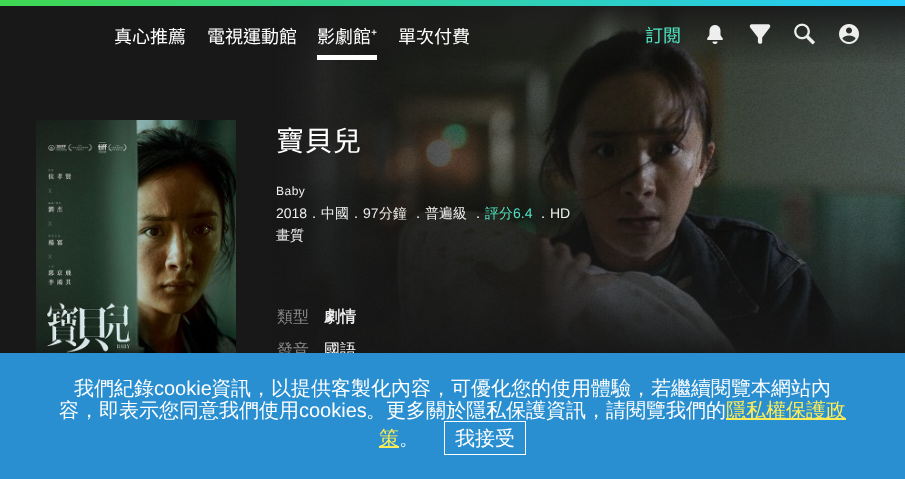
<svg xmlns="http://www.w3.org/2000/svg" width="905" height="479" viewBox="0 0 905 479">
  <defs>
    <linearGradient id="g1" gradientUnits="userSpaceOnUse" x1="453" y1="0" x2="453" y2="66"><stop offset="0" stop-color="#181818"/><stop offset="1" stop-color="#181818" stop-opacity="0"/></linearGradient>
    <linearGradient id="g2" gradientUnits="userSpaceOnUse" x1="223" y1="-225" x2="682" y2="231"><stop offset="0" stop-color="#3fd750"/><stop offset="1" stop-color="#24cbff"/></linearGradient>
  </defs>
  <rect width="100%" height="100%" fill="#181818"/>
  <image x="276" y="6" width="629" height="347" href="img6.png"/>
  <image x="272" y="6" width="633" height="347" href="img5.png"/>
  <rect x="278" y="6" width="627" height="57" fill="url(#g1)"/>
  <rect x="0" y="0" width="905" height="6" fill="url(#g2)"/>
  <text x="114" y="43" font-family="Noto Sans TC" font-size="18" font-weight="100" fill="#ffffff">真心推薦</text>
  <text x="207" y="43" font-family="Noto Sans TC" font-size="18" font-weight="100" fill="#ffffff">電視運動館</text>
  <rect x="317" y="55" width="60" height="5" fill="#ffffff"/>
  <text x="317" y="43" font-family="Noto Sans TC" font-size="18" font-weight="100" fill="#ffffff">影劇館</text>
  <text x="371" y="43" font-family="Noto Sans" font-size="18" fill="#ffffff">⁺</text>
  <text x="398" y="43" font-family="Noto Sans TC" font-size="18" font-weight="100" fill="#ffffff">單次付費</text>
  <text x="645" y="42" font-family="Noto Sans TC" font-size="18" font-weight="100" fill="#50e3c2">訂閱</text>
  <image x="707" y="25" width="16" height="19" href="img1.png"/>
  <image x="749" y="24" width="22" height="20" href="img2.png"/>
  <image x="794" y="23" width="21" height="22" href="img3.png"/>
  <image x="839" y="24" width="20" height="20" href="img4.png"/>
  <image x="36" y="120" width="200" height="233" href="img7.png"/>
  <text x="276" y="151" font-family="Noto Sans TC" font-size="28" font-weight="100" letter-spacing="0.5" fill="#ffffff">寶貝兒</text>
  <text x="276" y="195" font-family="Liberation Sans" font-size="12" letter-spacing="0.5" fill="#eeeeee">Baby</text>
  <text x="276" y="218" font-family="Liberation Sans" font-size="14" fill="#eeeeee">2018</text>
  <text x="307" y="218" font-family="WenQuanYi Zen Hei" font-size="14" font-weight="500" fill="#eeeeee">．中國．</text>
  <text x="363" y="218" font-family="Liberation Sans" font-size="14" fill="#eeeeee">97</text>
  <text x="379" y="218" font-family="WenQuanYi Zen Hei" font-size="14" font-weight="500" fill="#eeeeee">分鐘</text>
  <text x="411" y="218" font-family="WenQuanYi Zen Hei" font-size="14" font-weight="500" fill="#eeeeee">．普遍級</text>
  <text x="471" y="218" font-family="WenQuanYi Zen Hei" font-size="14" font-weight="500" fill="#eeeeee">．</text>
  <text x="485" y="218" font-family="WenQuanYi Zen Hei" font-size="14" font-weight="500" fill="#50e3c2">評分</text>
  <text x="513" y="218" font-family="Liberation Sans" font-size="14" fill="#50e3c2">6.4</text>
  <text x="536" y="218" font-family="WenQuanYi Zen Hei" font-size="14" font-weight="500" fill="#eeeeee">．</text>
  <text x="550" y="218" font-family="Liberation Sans" font-size="14" fill="#eeeeee">HD</text>
  <text x="276" y="240" font-family="WenQuanYi Zen Hei" font-size="14" font-weight="500" fill="#eeeeee">畫質</text>
  <text x="277" y="322" font-family="WenQuanYi Zen Hei" font-size="16" font-weight="500" fill="#888888">類型</text>
  <text x="324" y="322" font-family="WenQuanYi Zen Hei" font-size="16" font-weight="bold" fill="#eeeeee">劇情</text>
  <text x="277" y="355" font-family="WenQuanYi Zen Hei" font-size="16" font-weight="500" fill="#888888">發音</text>
  <text x="324" y="355" font-family="WenQuanYi Zen Hei" font-size="16" font-weight="500" fill="#ffffff">國語</text>
  <rect x="0" y="353" width="905" height="126" fill="#298fd1"/>
  <text x="74" y="395" font-family="WenQuanYi Zen Hei" font-size="20" font-weight="500" fill="#ffffff">我們紀錄</text>
  <text x="154" y="395" font-family="Liberation Sans" font-size="20" fill="#ffffff">cookie</text>
  <text x="211" y="395" font-family="WenQuanYi Zen Hei" font-size="20" font-weight="500" fill="#ffffff">資訊，以提供客製化內容，可優化您的使用體驗，若繼續閱覽本網站內</text>
  <text x="59" y="417" font-family="WenQuanYi Zen Hei" font-size="20" font-weight="500" fill="#ffffff">容，即表示您同意我們使用</text>
  <text x="299" y="417" font-family="Liberation Sans" font-size="20" fill="#ffffff">cookies</text>
  <text x="366" y="417" font-family="WenQuanYi Zen Hei" font-size="20" font-weight="500" fill="#ffffff">。更多關於隱私保護資訊，請閱覽我們的</text>
  <rect x="726" y="418" width="120" height="2" fill="#fdec57"/>
  <text x="726" y="417" font-family="WenQuanYi Zen Hei" font-size="20" font-weight="500" fill="#fdec57">隱私權保護政</text>
  <rect x="379" y="446" width="20" height="2" fill="#fdec57"/>
  <text x="379" y="445" font-family="WenQuanYi Zen Hei" font-size="20" font-weight="500" fill="#fdec57">策</text>
  <text x="399" y="445" font-family="WenQuanYi Zen Hei" font-size="20" font-weight="500" fill="#ffffff">。</text>
  <rect x="444.5" y="421.5" width="81" height="33" fill="none" stroke="#ffffff"/>
  <text x="455" y="445" font-family="WenQuanYi Zen Hei" font-size="20" font-weight="500" fill="#ffffff">我接受</text>
</svg>
